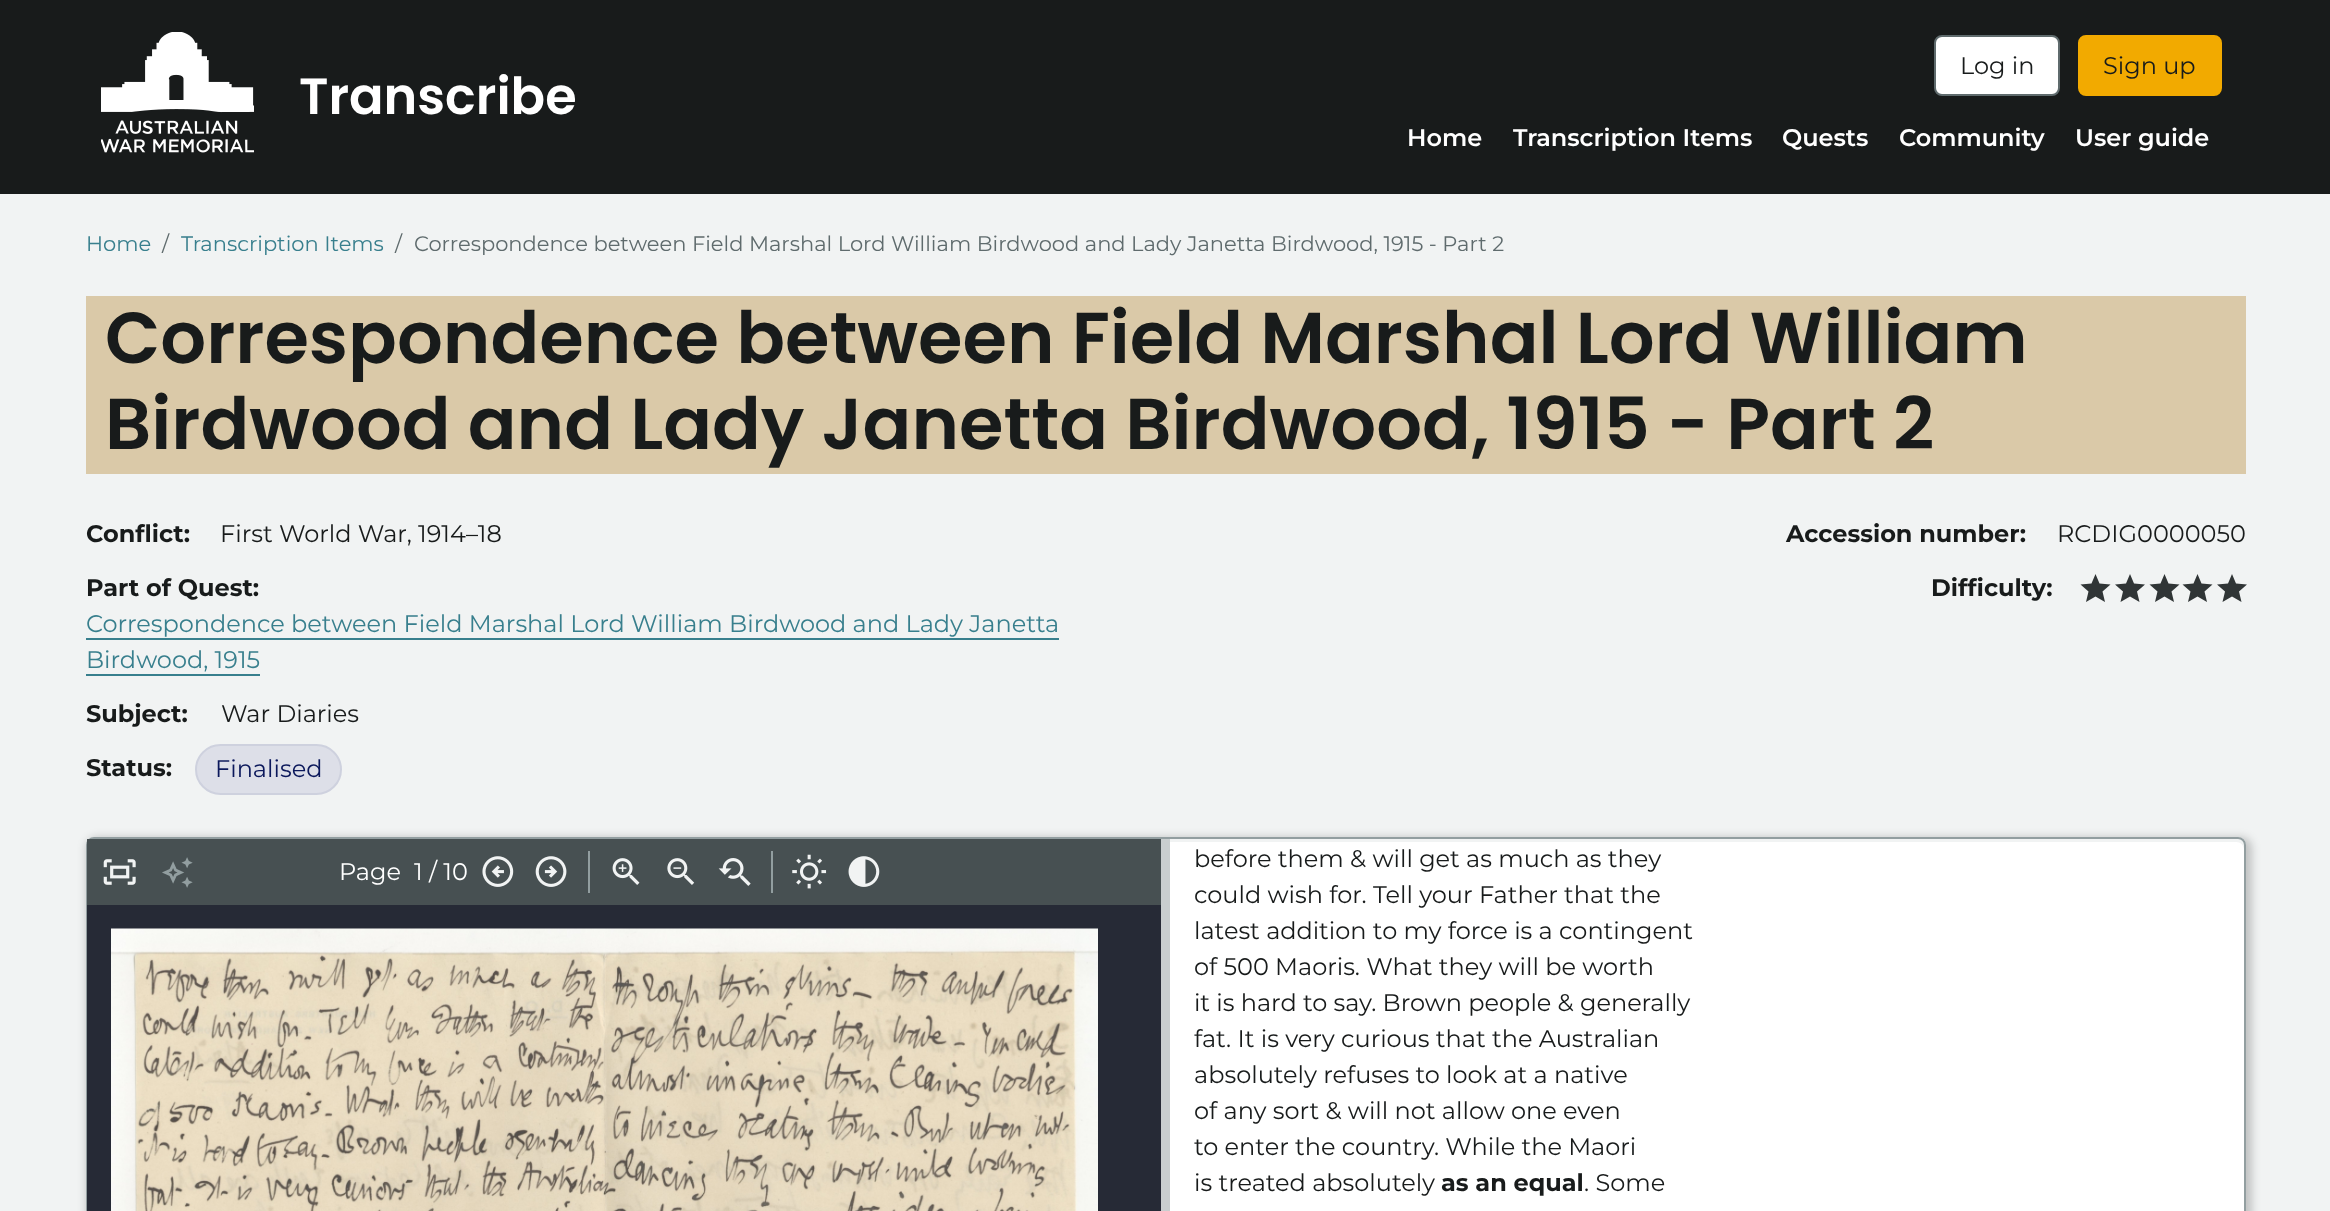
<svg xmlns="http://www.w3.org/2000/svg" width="2330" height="1211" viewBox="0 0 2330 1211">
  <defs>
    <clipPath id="clip1"><path d="M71 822H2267V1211H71ZM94 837H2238C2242.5 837 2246 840.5 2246 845V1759C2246 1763.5 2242.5 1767 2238 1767H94C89.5 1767 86 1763.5 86 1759V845C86 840.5 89.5 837 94 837Z" clip-rule="evenodd"/></clipPath>
    <filter id="blur1" x="-50%" y="-200%" width="200%" height="500%"><feGaussianBlur stdDeviation="4.5"/></filter>
  </defs>
  <rect width="100%" height="100%" fill="#f1f3f3"/>
  <rect x="0" y="0" width="2330" height="194" fill="#181b1b"/>
  <image x="101" y="32" width="153" height="121" href="img1.png"/>
  <text x="299" y="114" font-family="Poppins" font-size="51" font-weight="600" fill="#ffffff">Transcribe</text>
  <rect x="1935" y="36" width="124" height="59" rx="7" fill="#ffffff" stroke="#5f6b6d" stroke-width="2"/>
  <text x="1960" y="74" font-family="Montserrat" font-size="24" fill="#181b1b">Log in</text>
  <rect x="2079" y="36" width="142" height="59" rx="7" fill="#f2aa00" stroke="#f2aa00" stroke-width="2"/>
  <text x="2103" y="74" font-family="Montserrat" font-size="24" fill="#181b1b">Sign up</text>
  <text x="1407" y="146" font-family="Montserrat" font-size="24" font-weight="600" fill="#ffffff">Home</text>
  <text x="1513" y="146" font-family="Montserrat" font-size="24" font-weight="600" fill="#ffffff">Transcription Items</text>
  <text x="1782" y="146" font-family="Montserrat" font-size="24" font-weight="600" fill="#ffffff">Quests</text>
  <text x="1899" y="146" font-family="Montserrat" font-size="24" font-weight="600" fill="#ffffff">Community</text>
  <text x="2075" y="146" font-family="Montserrat" font-size="24" font-weight="600" fill="#ffffff">User guide</text>
  <text x="86" y="251" font-family="Montserrat" font-size="21" fill="#387f8d">Home</text>
  <text x="162" y="251" font-family="Montserrat" font-size="21" fill="#5f6b6d">/</text>
  <text x="181" y="251" font-family="Montserrat" font-size="21" fill="#387f8d">Transcription Items</text>
  <text x="395" y="251" font-family="Montserrat" font-size="21" fill="#5f6b6d">/</text>
  <text x="414" y="251" font-family="Montserrat" font-size="21" fill="#5f6b6d">Correspondence between Field Marshal Lord William Birdwood and Lady Janetta Birdwood, 1915 - Part 2</text>
  <rect x="86" y="296" width="2160" height="178" fill="#dac9a8"/>
  <text x="105" y="363" font-family="Poppins" font-size="72" font-weight="600" fill="#181b1b">Correspondence between Field Marshal Lord William</text>
  <text x="105" y="449" font-family="Poppins" font-size="72" font-weight="600" fill="#181b1b">Birdwood and Lady Janetta Birdwood, 1915 - Part 2</text>
  <text x="86" y="542" font-family="Montserrat" font-size="24" font-weight="bold" fill="#181b1b">Conflict:</text>
  <text x="220" y="542" font-family="Montserrat" font-size="24" fill="#181b1b">First World War, 1914–18</text>
  <text x="86" y="596" font-family="Montserrat" font-size="24" font-weight="bold" fill="#181b1b">Part of Quest:</text>
  <text x="86" y="632" font-family="Montserrat" font-size="24" fill="#387f8d">Correspondence between Field Marshal Lord William Birdwood and Lady Janetta</text>
  <rect x="86" y="638" width="973" height="2" fill="#387f8d"/>
  <text x="86" y="668" font-family="Montserrat" font-size="24" fill="#387f8d">Birdwood, 1915</text>
  <rect x="86" y="674" width="174" height="2" fill="#387f8d"/>
  <text x="86" y="722" font-family="Montserrat" font-size="24" font-weight="bold" fill="#181b1b">Subject:</text>
  <text x="221" y="722" font-family="Montserrat" font-size="24" fill="#181b1b">War Diaries</text>
  <text x="86" y="776" font-family="Montserrat" font-size="24" font-weight="bold" fill="#181b1b">Status:</text>
  <rect x="196" y="745" width="145" height="49" rx="24.5" fill="#dddfe8" stroke="#ced1de" stroke-width="2"/>
  <text x="215" y="777" font-family="Montserrat" font-size="24" fill="#0b185b">Finalised</text>
  <text x="1786" y="542" font-family="Montserrat" font-size="24" font-weight="bold" fill="#181b1b">Accession number:</text>
  <text x="2057" y="542" font-family="Montserrat" font-size="24" fill="#181b1b">RCDIG0000050</text>
  <text x="1931" y="596" font-family="Montserrat" font-size="24" font-weight="bold" fill="#181b1b">Difficulty:</text>
  <path d="M2095.5 596.5L2105 602L2102.5 591.5L2110.5 584.5L2099.5 583.5L2095.5 574L2091.5 583.5L2080.5 584.5L2088.5 591.5L2086 602Z" fill="#303536"/>
  <path d="M2130 596.5L2139.5 602L2137 591.5L2145 584.5L2134 583.5L2130 574L2126 583.5L2115 584.5L2123 591.5L2120.5 602Z" fill="#303536"/>
  <path d="M2164.5 596.5L2174 602L2171.5 591.5L2179.5 584.5L2168.5 583.5L2164.5 574L2160.5 583.5L2149.5 584.5L2157.5 591.5L2155 602Z" fill="#303536"/>
  <path d="M2197.5 596.5L2207 602L2204.5 591.5L2212.5 584.5L2201.5 583.5L2197.5 574L2193.5 583.5L2182.5 584.5L2190.5 591.5L2188 602Z" fill="#303536"/>
  <path d="M2232 596.5L2241.5 602L2239 591.5L2247 584.5L2236 583.5L2232 574L2228 583.5L2217 584.5L2225 591.5L2222.5 602Z" fill="#303536"/>
  <g clip-path="url(#clip1)">
    <rect x="86" y="837" width="2166" height="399" rx="11" fill="#000000" fill-opacity="0.2" filter="url(#blur1)"/>
  </g>
  <rect x="87" y="838" width="2158" height="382" rx="7" fill="none" stroke="#929ea0" stroke-width="2"/>
  <rect x="87" y="905" width="1074" height="306" fill="#262a36"/>
  <rect x="87" y="839" width="1074" height="66" fill="#475052"/>
  <rect x="588" y="851" width="2" height="42" fill="#929ea0"/>
  <image x="612" y="858" width="28" height="27" href="img2.png"/>
  <image x="667" y="858" width="28" height="27" href="img3.png"/>
  <image x="718" y="858" width="33" height="28" href="img4.png"/>
  <rect x="771" y="851" width="2" height="42" fill="#929ea0"/>
  <image x="792" y="854" width="35" height="35" href="img5.png"/>
  <image x="848" y="856" width="32" height="31" href="img6.png"/>
  <image x="111" y="928" width="987" height="283" href="img7.png"/>
  <image x="103" y="859" width="33" height="26" href="img8.png"/>
  <image x="162" y="857" width="31" height="31" href="img9.png"/>
  <text x="339" y="880" font-family="Montserrat" font-size="24" fill="#ffffff">Page</text>
  <text x="414" y="880" font-family="Montserrat" font-size="24" fill="#ffffff">1 / 10</text>
  <image x="482" y="856" width="32" height="31" href="img10.png"/>
  <image x="535" y="856" width="32" height="31" href="img11.png"/>
  <rect x="1161" y="839" width="9" height="372" fill="#c9cecf"/>
  <path d="M1170 842H2236C2240.5 842 2244 845.5 2244 850V1211C2244 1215.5 2240.5 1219 2236 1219H1170Z" fill="#ffffff"/>
  <text x="1194" y="867" font-family="Montserrat" font-size="24" fill="#181b1b">before them &amp; will get as much as they</text>
  <text x="1194" y="903" font-family="Montserrat" font-size="24" fill="#181b1b">could wish for. Tell your Father that the</text>
  <text x="1194" y="939" font-family="Montserrat" font-size="24" fill="#181b1b">latest addition to my force is a contingent</text>
  <text x="1194" y="975" font-family="Montserrat" font-size="24" fill="#181b1b">of 500 Maoris. What they will be worth</text>
  <text x="1194" y="1011" font-family="Montserrat" font-size="24" fill="#181b1b">it is hard to say. Brown people &amp; generally</text>
  <text x="1194" y="1047" font-family="Montserrat" font-size="24" fill="#181b1b">fat. It is very curious that the Australian</text>
  <text x="1194" y="1083" font-family="Montserrat" font-size="24" fill="#181b1b">absolutely refuses to look at a native</text>
  <text x="1194" y="1119" font-family="Montserrat" font-size="24" fill="#181b1b">of any sort &amp; will not allow one even</text>
  <text x="1194" y="1155" font-family="Montserrat" font-size="24" fill="#181b1b">to enter the country. While the Maori</text>
  <text x="1194" y="1191" font-family="Montserrat" font-size="24" fill="#181b1b">is treated absolutely</text>
  <text x="1441" y="1191" font-family="Montserrat" font-size="24" font-weight="bold" fill="#181b1b">as an equal</text>
  <text x="1584" y="1191" font-family="Montserrat" font-size="24" fill="#181b1b">. Some</text>
</svg>
